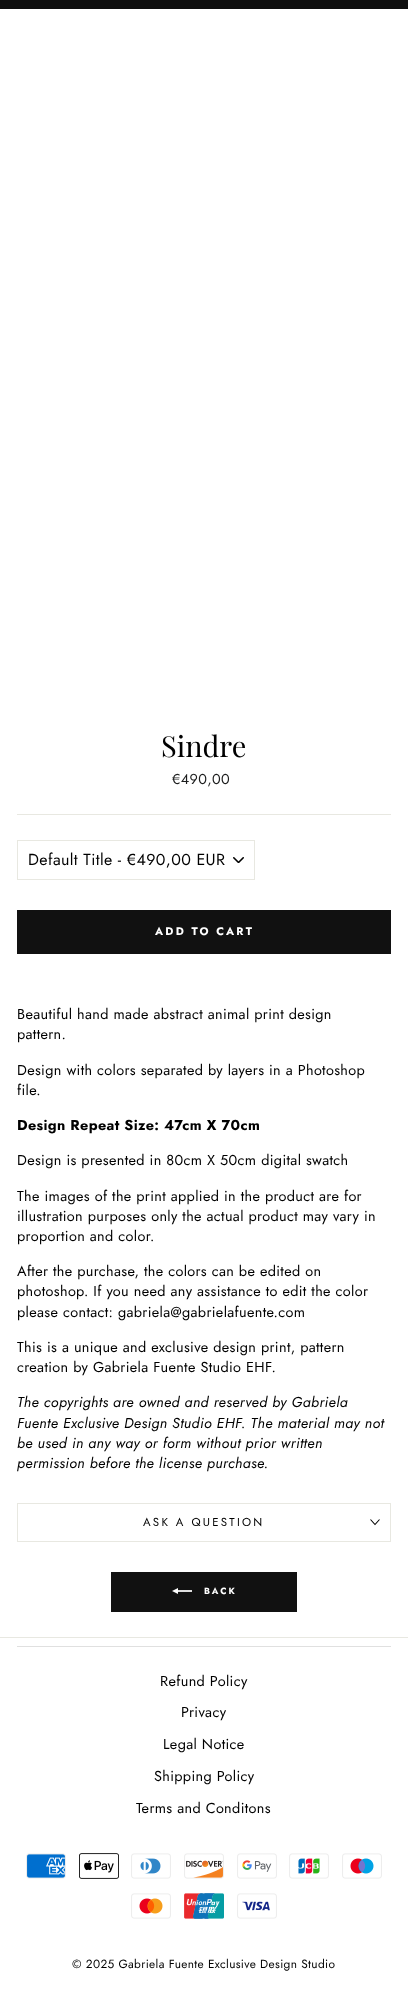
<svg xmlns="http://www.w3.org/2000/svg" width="408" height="1995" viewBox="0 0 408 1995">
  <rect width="100%" height="100%" fill="#ffffff"/>
  <rect x="0" y="0" width="408" height="9" fill="#0f0f0f"/>
  <text x="161" y="757" font-family="Playfair Display" font-size="29" fill="#000000">Sindre</text>
  <text x="172" y="784" font-family="Jost" font-size="14.45" letter-spacing="0.35" fill="#1c1d1d">€490,00</text>
  <rect x="17" y="814" width="374" height="1" fill="#e8e8e1"/>
  <image x="233" y="857" width="11" height="6" href="img1.png"/>
  <rect x="17.5" y="840.5" width="237" height="39" fill="none" stroke="#e8e8e1"/>
  <text x="28" y="865" font-family="Jost" font-size="16" letter-spacing="0.4" fill="#000000">Default Title - €490,00 EUR</text>
  <rect x="17" y="910" width="374" height="44" fill="#111111"/>
  <text x="155" y="935" font-family="Jost" font-size="11" font-weight="bold" letter-spacing="2.25" fill="#ffffff">ADD TO CART</text>
  <text x="17" y="1019" font-family="Jost" font-size="14.45" letter-spacing="0.35" fill="#000000">Beautiful hand made abstract animal print design</text>
  <text x="17" y="1039" font-family="Jost" font-size="14.45" letter-spacing="0.35" fill="#000000">pattern.</text>
  <text x="17" y="1075" font-family="Jost" font-size="14.45" letter-spacing="0.35" fill="#000000">Design with colors separated by layers in a Photoshop</text>
  <text x="17" y="1095" font-family="Jost" font-size="14.45" letter-spacing="0.35" fill="#000000">file.</text>
  <text x="17" y="1130" font-family="Jost" font-size="14.45" font-weight="bold" letter-spacing="0.35" fill="#000000">Design Repeat Size: 47cm X 70cm</text>
  <text x="17" y="1165" font-family="Jost" font-size="14.45" letter-spacing="0.35" fill="#000000">Design is presented in 80cm X 50cm digital swatch</text>
  <text x="17" y="1201" font-family="Jost" font-size="14.45" letter-spacing="0.35" fill="#000000">The images of the print applied in the product are for</text>
  <text x="17" y="1221" font-family="Jost" font-size="14.45" letter-spacing="0.35" fill="#000000">illustration purposes only the actual product may vary in</text>
  <text x="17" y="1241" font-family="Jost" font-size="14.45" letter-spacing="0.35" fill="#000000">proportion and color.</text>
  <text x="17" y="1276" font-family="Jost" font-size="14.45" letter-spacing="0.35" fill="#000000">After the purchase, the colors can be edited on</text>
  <text x="17" y="1296" font-family="Jost" font-size="14.45" letter-spacing="0.35" fill="#000000">photoshop. If you need any assistance to edit the color</text>
  <text x="17" y="1317" font-family="Jost" font-size="14.45" letter-spacing="0.35" fill="#000000">please contact: gabriela@gabrielafuente.com</text>
  <text x="17" y="1352" font-family="Jost" font-size="14.45" letter-spacing="0.35" fill="#000000">This is a unique and exclusive design print, pattern</text>
  <text x="17" y="1372" font-family="Jost" font-size="14.45" letter-spacing="0.35" fill="#000000">creation by Gabriela Fuente Studio EHF.</text>
  <text x="17" y="1407" font-family="Jost" font-size="14.45" font-style="italic" letter-spacing="0.35" fill="#000000">The copyrights are owned and reserved by Gabriela</text>
  <text x="17" y="1428" font-family="Jost" font-size="14.45" font-style="italic" letter-spacing="0.35" fill="#000000">Fuente Exclusive Design Studio EHF. The material may not</text>
  <text x="17" y="1448" font-family="Jost" font-size="14.45" font-style="italic" letter-spacing="0.35" fill="#000000">be used in any way or form without prior written</text>
  <text x="17" y="1468" font-family="Jost" font-size="14.45" font-style="italic" letter-spacing="0.35" fill="#000000">permission before the license purchase.</text>
  <rect x="17" y="1541" width="374" height="1" fill="#e8e8e1"/>
  <rect x="17" y="1503" width="374" height="1" fill="#e8e8e1"/>
  <rect x="390" y="1503" width="1" height="38" fill="#e8e8e1"/>
  <rect x="17" y="1503" width="1" height="38" fill="#e8e8e1"/>
  <text x="143" y="1526" font-family="Jost" font-size="11.5" letter-spacing="2.25" fill="#000000">ASK A QUESTION</text>
  <path d="M370.5 1519.5L375 1524.5L379.5 1519.5" fill="none" stroke="#000000" stroke-width="1.1"/>
  <rect x="111" y="1572" width="186" height="40" fill="#111111"/>
  <image x="172" y="1588" width="20" height="6" href="img2.png"/>
  <text x="204" y="1594" font-family="Jost" font-size="9" font-weight="bold" letter-spacing="2" fill="#ffffff">BACK</text>
  <rect x="0" y="1637" width="408" height="1" fill="#e8e8e1"/>
  <rect x="17" y="1646" width="374" height="1" fill="#e0e0e0"/>
  <text x="160" y="1686" font-family="Jost" font-size="14.45" letter-spacing="0.35" fill="#000000">Refund Policy</text>
  <text x="181" y="1717" font-family="Jost" font-size="14.45" letter-spacing="0.35" fill="#000000">Privacy</text>
  <text x="163" y="1749" font-family="Jost" font-size="14.45" letter-spacing="0.35" fill="#000000">Legal Notice</text>
  <text x="154" y="1781" font-family="Jost" font-size="14.45" letter-spacing="0.35" fill="#000000">Shipping Policy</text>
  <text x="136" y="1813" font-family="Jost" font-size="14.45" letter-spacing="0.35" fill="#000000">Terms and Conditons</text>
  <image x="26" y="1853" width="40" height="26" href="img3.png"/>
  <image x="79" y="1853" width="40" height="26" href="img4.png"/>
  <image x="131" y="1853" width="40" height="26" href="img5.png"/>
  <image x="184" y="1853" width="40" height="26" href="img6.png"/>
  <image x="237" y="1853" width="40" height="26" href="img7.png"/>
  <image x="289" y="1853" width="40" height="26" href="img8.png"/>
  <image x="342" y="1853" width="40" height="26" href="img9.png"/>
  <image x="131" y="1893" width="40" height="26" href="img10.png"/>
  <image x="184" y="1893" width="40" height="26" href="img11.png"/>
  <image x="237" y="1893" width="40" height="26" href="img12.png"/>
  <text x="72" y="1968" font-family="Jost" font-size="11.9" letter-spacing="0.35" fill="#000000">© 2025 Gabriela Fuente Exclusive Design Studio</text>
</svg>
